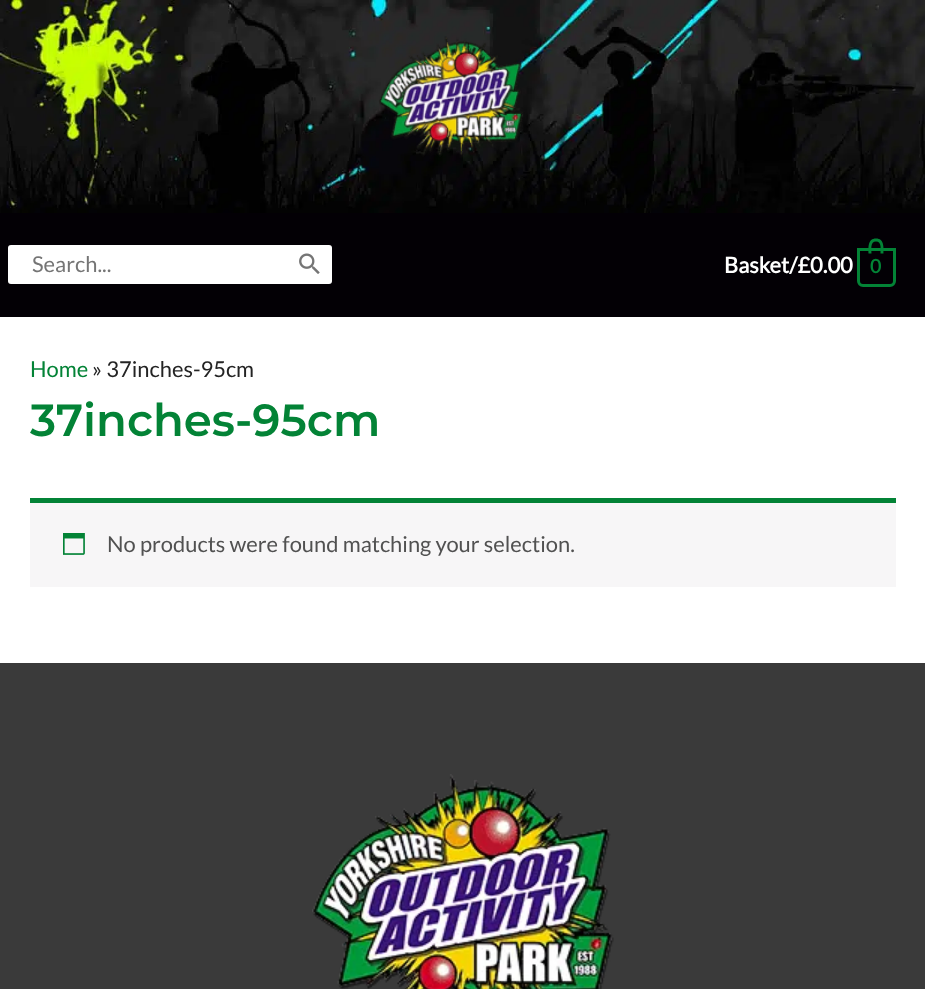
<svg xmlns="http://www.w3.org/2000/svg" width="925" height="989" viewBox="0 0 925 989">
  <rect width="100%" height="100%" fill="#ffffff"/>
  <image x="0" y="0" width="925" height="213" href="img1.png"/>
  <image x="379" y="36" width="144" height="121" href="img2.png"/>
  <rect x="0" y="213" width="925" height="104" fill="#030005"/>
  <rect x="8" y="245" width="324" height="39" rx="3" fill="#ffffff"/>
  <text x="32" y="272" font-family="Lato" font-size="21.9" fill="#757575">Search...</text>
  <image x="299" y="253" width="21" height="21" href="img3.png"/>
  <text x="724" y="273" font-family="Lato" font-size="21.9" font-weight="bold" fill="#ffffff">Basket/£0.00</text>
  <path d="M858.5 249.5H894.5V281C894.5 283.5 892.5 285.5 890 285.5H863C860.5 285.5 858.5 283.5 858.5 281Z" fill="none" stroke="#038336" stroke-width="3"/>
  <path d="M876 238.5C884.5 238.5 883.5 247.5 883.5 253.5H868.5C868.5 247.5 867.5 238.5 876 238.5ZM876 241.5C882 241.5 880.5 249.5 880.5 253.5H871.5C871.5 249.5 870 241.5 876 241.5Z" fill="#038336" fill-rule="evenodd"/>
  <text x="870" y="273" font-family="Lato" font-size="19" font-weight="bold" fill="#038336">0</text>
  <text x="30" y="377" font-family="Lato" font-size="21.9" fill="#038336">Home</text>
  <text x="92" y="377" font-family="Lato" font-size="21.9" fill="#242424">» 37inches-95cm</text>
  <text x="30" y="436" font-family="Montserrat" font-size="45" font-weight="600" fill="#038336">37inches-95cm</text>
  <rect x="30" y="503" width="866" height="84" fill="#f7f6f7"/>
  <rect x="30" y="498" width="866" height="5" fill="#038336"/>
  <image x="63" y="533" width="22" height="22" href="img4.png"/>
  <text x="107" y="552" font-family="Lato" font-size="21.9" fill="#515151">No products were found matching your selection.</text>
  <rect x="0" y="663" width="925" height="326" fill="#3a3a3a"/>
  <image x="312" y="774" width="302" height="215" href="img5.png"/>
</svg>
